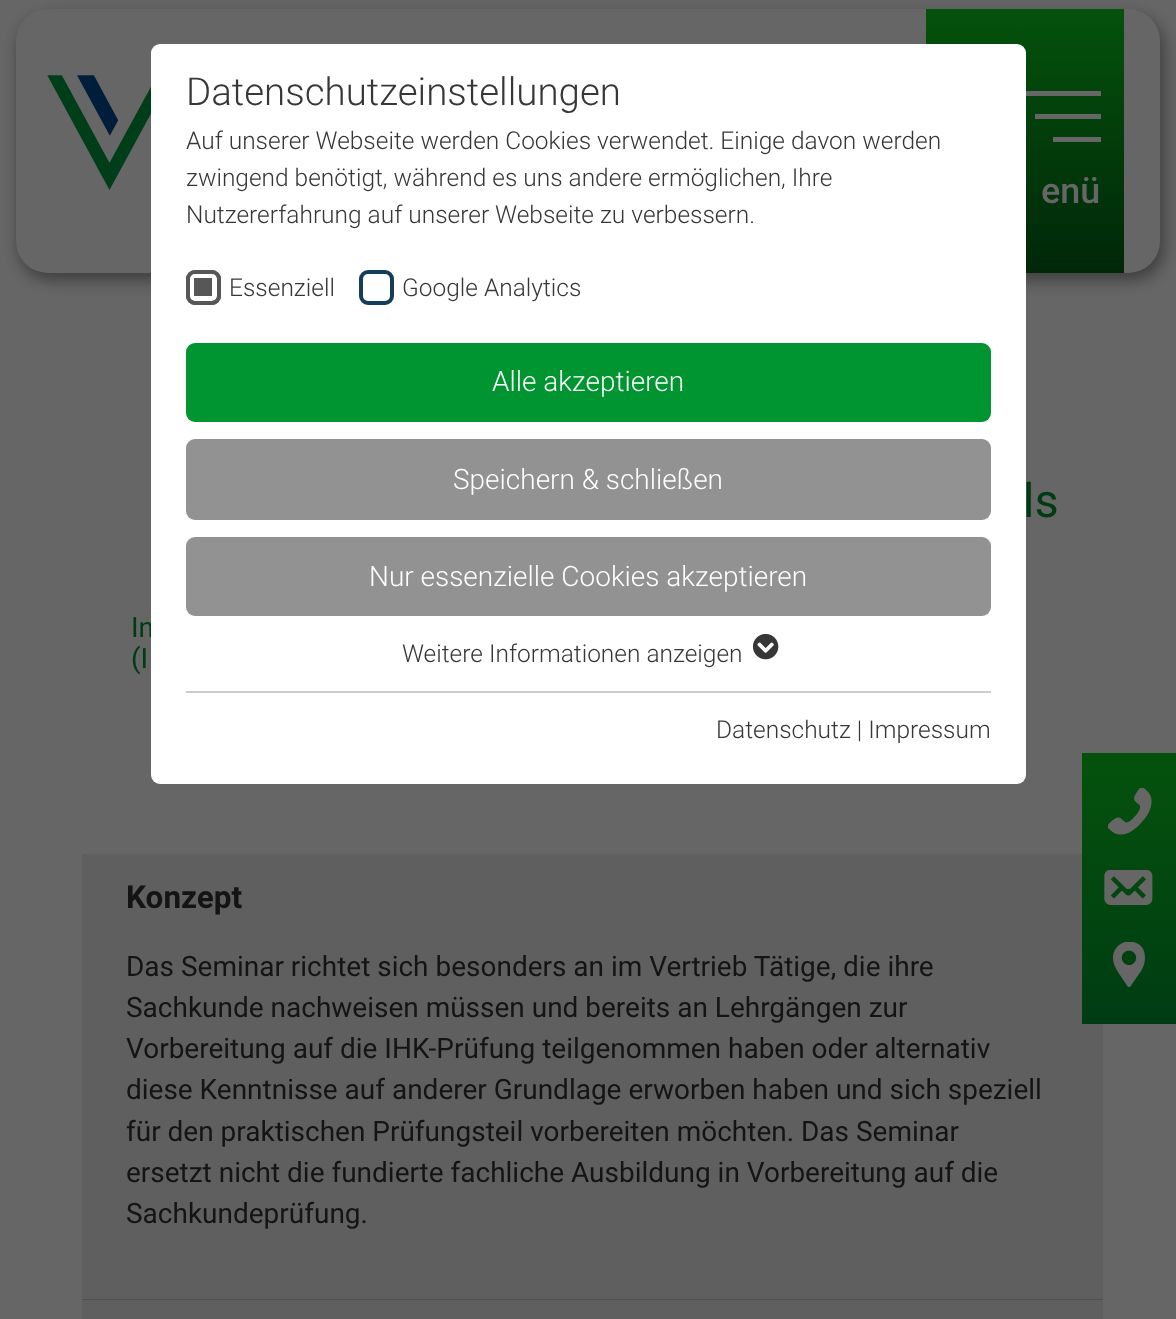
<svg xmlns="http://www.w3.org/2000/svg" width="1176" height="1319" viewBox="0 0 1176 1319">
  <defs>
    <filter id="blur1" x="-50%" y="-200%" width="200%" height="500%"><feGaussianBlur stdDeviation="8"/></filter>
    <linearGradient id="g1" gradientUnits="userSpaceOnUse" x1="1025" y1="273" x2="1025" y2="9"><stop offset="0" stop-color="#002709"/><stop offset="1" stop-color="#04520c"/></linearGradient>
    <linearGradient id="g2" gradientUnits="userSpaceOnUse" x1="1129" y1="1024" x2="1129" y2="753"><stop offset="0" stop-color="#003c13"/><stop offset="1" stop-color="#04520c"/></linearGradient>
  </defs>
  <rect width="100%" height="100%" fill="#666666"/>
  <rect x="19" y="16" width="1145" height="264" rx="32" fill="#000000" fill-opacity="0.4" filter="url(#blur1)"/>
  <rect x="16" y="9" width="1144" height="264" rx="32" fill="#666666"/>
  <rect x="926" y="9" width="198" height="264" fill="url(#g1)"/>
  <text x="131" y="637" font-family="Roboto" font-size="28" fill="#003c13">In</text>
  <rect x="151" y="44" width="875" height="740" rx="9" fill="#ffffff"/>
  <text x="186" y="105" font-family="Roboto" font-size="38.5" font-weight="300" fill="#373737">Datenschutzeinstellungen</text>
  <text x="186" y="149" font-family="Roboto" font-size="24.5" font-weight="300" fill="#373737">Auf unserer Webseite werden Cookies verwendet. Einige davon werden</text>
  <text x="186" y="186" font-family="Roboto" font-size="24.5" font-weight="300" fill="#373737">zwingend benötigt, während es uns andere ermöglichen, Ihre</text>
  <text x="186" y="223" font-family="Roboto" font-size="24.5" font-weight="300" fill="#373737">Nutzererfahrung auf unserer Webseite zu verbessern.</text>
  <rect x="186" y="270" width="35" height="35" rx="9" fill="#575757"/>
  <rect x="191.5" y="275.5" width="23" height="23" rx="2.5" fill="none" stroke="#ffffff" stroke-width="5"/>
  <rect x="188" y="272" width="31" height="31" rx="7" fill="none" stroke="#575757" stroke-width="4"/>
  <text x="229" y="296" font-family="Roboto" font-size="24.5" font-weight="300" fill="#373737">Essenziell</text>
  <rect x="361" y="272" width="31" height="31" rx="7" fill="none" stroke="#143d59" stroke-width="4"/>
  <text x="402" y="296" font-family="Roboto" font-size="24.5" font-weight="300" fill="#373737">Google Analytics</text>
  <rect x="186" y="343" width="805" height="79" rx="9" fill="#009530"/>
  <text x="492" y="391" font-family="Roboto" font-size="28" font-weight="300" fill="#ffffff">Alle akzeptieren</text>
  <rect x="186" y="439" width="805" height="81" rx="9" fill="#929292"/>
  <text x="453" y="489" font-family="Roboto" font-size="28" font-weight="300" fill="#ffffff">Speichern &amp; schließen</text>
  <rect x="186" y="537" width="805" height="79" rx="9" fill="#929292"/>
  <text x="369" y="586" font-family="Roboto" font-size="28" font-weight="300" fill="#ffffff">Nur essenzielle Cookies akzeptieren</text>
  <text x="402" y="662" font-family="Roboto" font-size="24.5" font-weight="300" fill="#373737">Weitere Informationen anzeigen</text>
  <image x="753" y="634" width="26" height="26" href="img1.png"/>
  <rect x="186" y="691" width="805" height="2" fill="#cccccc"/>
  <text x="716" y="738" font-family="Roboto" font-size="24.5" font-weight="300" fill="#373737">Datenschutz | Impressum</text>
  <image x="47" y="75" width="104" height="115" href="img2.png"/>
  <rect x="1026" y="91" width="75" height="5" fill="#666666"/>
  <rect x="1035" y="114" width="66" height="5" fill="#666666"/>
  <rect x="1053" y="137" width="48" height="5" fill="#666666"/>
  <text x="1041" y="203" font-family="Roboto" font-size="36" font-weight="500" fill="#666666">enü</text>
  <text x="1023" y="517" font-family="Roboto" font-size="47" fill="#003c13">ls</text>
  <text x="131" y="668" font-family="Roboto" font-size="28" fill="#003c13">(I</text>
  <rect x="82" y="854" width="1021" height="445" fill="#5f5f5f"/>
  <rect x="82" y="1299" width="1021" height="1" fill="#4f5051"/>
  <text x="126" y="908" font-family="Roboto" font-size="31.5" font-weight="bold" fill="#141414">Konzept</text>
  <text x="126" y="976" font-family="Roboto" font-size="28" fill="#141414">Das Seminar richtet sich besonders an im Vertrieb Tätige, die ihre</text>
  <text x="126" y="1017" font-family="Roboto" font-size="28" fill="#141414">Sachkunde nachweisen müssen und bereits an Lehrgängen zur</text>
  <text x="126" y="1058" font-family="Roboto" font-size="28" fill="#141414">Vorbereitung auf die IHK-Prüfung teilgenommen haben oder alternativ</text>
  <text x="126" y="1099" font-family="Roboto" font-size="28" fill="#141414">diese Kenntnisse auf anderer Grundlage erworben haben und sich speziell</text>
  <text x="126" y="1141" font-family="Roboto" font-size="28" fill="#141414">für den praktischen Prüfungsteil vorbereiten möchten. Das Seminar</text>
  <text x="126" y="1182" font-family="Roboto" font-size="28" fill="#141414">ersetzt nicht die fundierte fachliche Ausbildung in Vorbereitung auf die</text>
  <text x="126" y="1223" font-family="Roboto" font-size="28" fill="#141414">Sachkundeprüfung.</text>
  <rect x="82" y="1300" width="1021" height="19" fill="#5f5f5f"/>
  <rect x="1082" y="753" width="94" height="271" fill="url(#g2)"/>
  <image x="1108" y="788" width="44" height="47" href="img3.png"/>
  <image x="1104" y="870" width="49" height="35" href="img4.png"/>
  <image x="1113" y="942" width="32" height="45" href="img5.png"/>
</svg>
